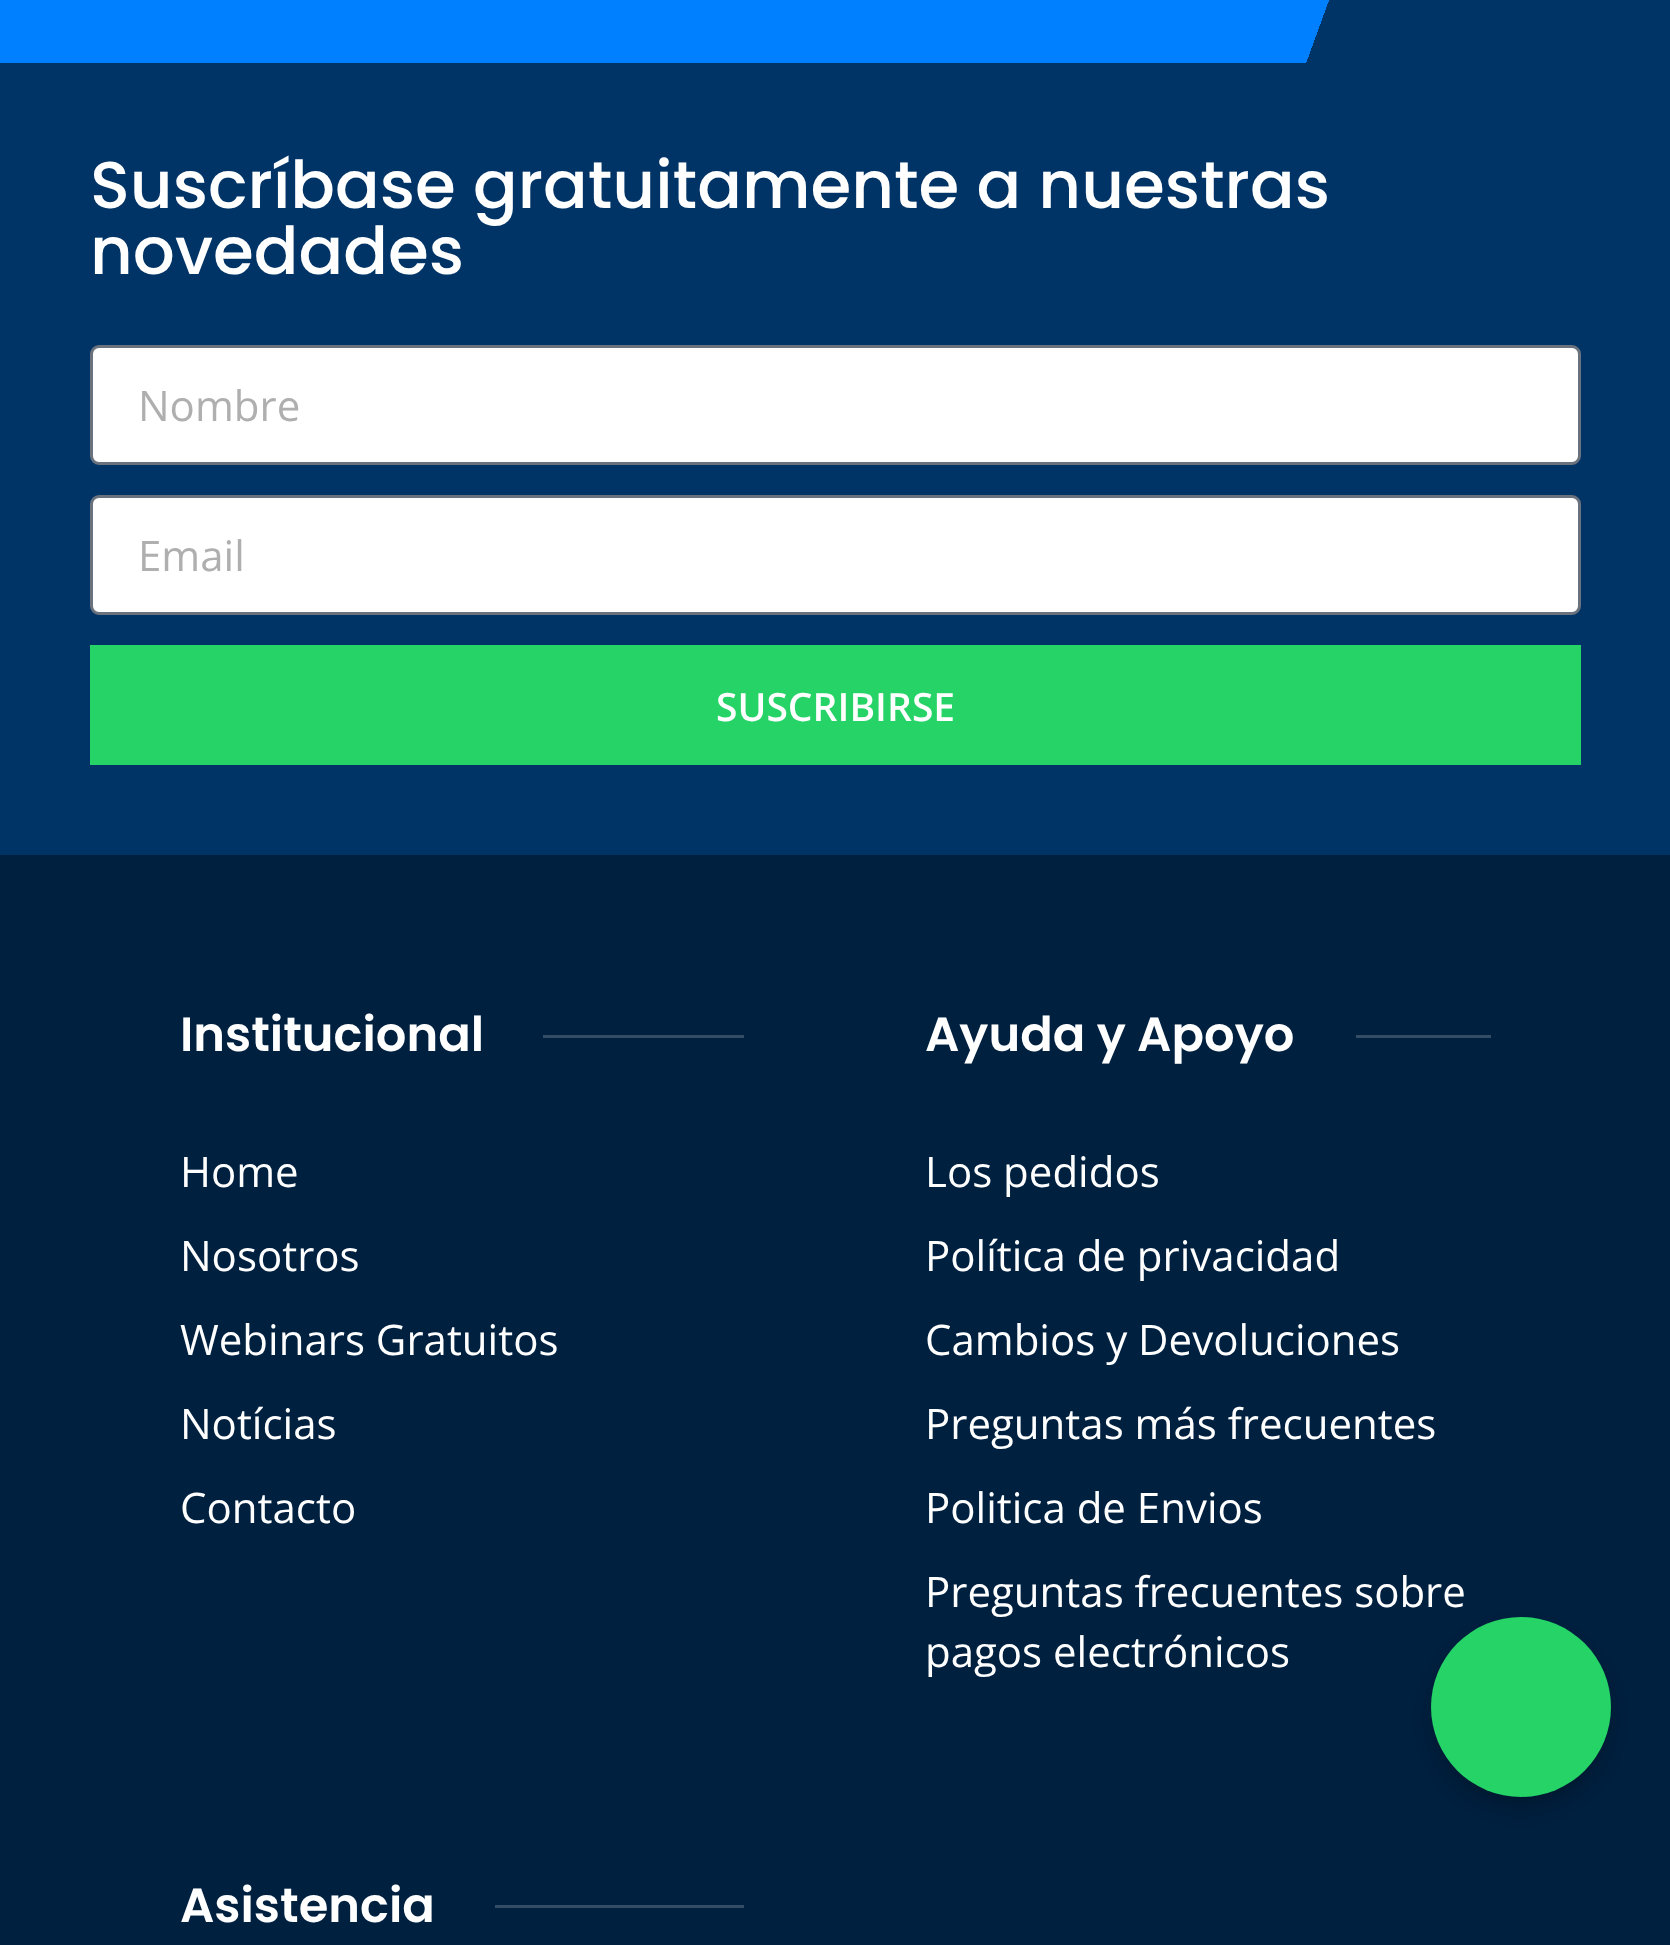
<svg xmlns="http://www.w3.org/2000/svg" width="1670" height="1945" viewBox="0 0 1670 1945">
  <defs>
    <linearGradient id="g1" gradientUnits="userSpaceOnUse" x1="31" y1="-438" x2="1640" y2="147"><stop offset="0.8" stop-color="#0080ff"/><stop offset="0.8" stop-color="#003366"/></linearGradient>
    <filter id="blur1" x="-50%" y="-200%" width="200%" height="500%"><feGaussianBlur stdDeviation="12"/></filter>
  </defs>
  <rect width="100%" height="100%" fill="#002040"/>
  <rect x="0" y="0" width="1670" height="63" fill="url(#g1)"/>
  <rect x="0" y="63" width="1670" height="792" fill="#003366"/>
  <text x="90" y="208" font-family="Poppins" font-size="66" font-weight="500" fill="#ffffff">Suscríbase gratuitamente a nuestras</text>
  <text x="90" y="274" font-family="Poppins" font-size="66" font-weight="500" fill="#ffffff">novedades</text>
  <rect x="91.5" y="346.5" width="1488" height="117" rx="7.5" fill="#ffffff" stroke="#69727d" stroke-width="3"/>
  <text x="138" y="421" font-family="Open Sans" font-size="42" fill="#afafaf">Nombre</text>
  <rect x="91.5" y="496.5" width="1488" height="117" rx="7.5" fill="#ffffff" stroke="#69727d" stroke-width="3"/>
  <text x="138" y="571" font-family="Open Sans" font-size="42" fill="#afafaf">Email</text>
  <rect x="90" y="645" width="1491" height="120" fill="#25d366"/>
  <text x="716" y="721" font-family="Open Sans" font-size="39" font-weight="600" fill="#ffffff">SUSCRIBIRSE</text>
  <text x="180" y="1051" font-family="Poppins" font-size="48" font-weight="600" fill="#ffffff">Institucional</text>
  <rect x="543" y="1035" width="201" height="3" fill="#334d66"/>
  <text x="180" y="1187" font-family="Open Sans" font-size="42" fill="#ffffff">Home</text>
  <text x="180" y="1271" font-family="Open Sans" font-size="42" fill="#ffffff">Nosotros</text>
  <text x="180" y="1355" font-family="Open Sans" font-size="42" fill="#ffffff">Webinars Gratuitos</text>
  <text x="180" y="1439" font-family="Open Sans" font-size="42" fill="#ffffff">Notícias</text>
  <text x="180" y="1523" font-family="Open Sans" font-size="42" fill="#ffffff">Contacto</text>
  <text x="925" y="1051" font-family="Poppins" font-size="48" font-weight="600" fill="#ffffff">Ayuda y Apoyo</text>
  <rect x="1356" y="1035" width="135" height="3" fill="#334d66"/>
  <text x="925" y="1187" font-family="Open Sans" font-size="42" fill="#ffffff">Los pedidos</text>
  <text x="925" y="1271" font-family="Open Sans" font-size="42" fill="#ffffff">Política de privacidad</text>
  <text x="925" y="1355" font-family="Open Sans" font-size="42" fill="#ffffff">Cambios y Devoluciones</text>
  <text x="925" y="1439" font-family="Open Sans" font-size="42" fill="#ffffff">Preguntas más frecuentes</text>
  <text x="925" y="1523" font-family="Open Sans" font-size="42" fill="#ffffff">Politica de Envios</text>
  <text x="925" y="1607" font-family="Open Sans" font-size="42" fill="#ffffff">Preguntas frecuentes sobre</text>
  <text x="925" y="1667" font-family="Open Sans" font-size="42" fill="#ffffff">pagos electrónicos</text>
  <text x="180" y="1922" font-family="Poppins" font-size="48" font-weight="600" fill="#ffffff">Asistencia</text>
  <rect x="495" y="1905" width="249" height="3" fill="#334d66"/>
  <rect x="1431" y="1629" width="180" height="180" rx="90" fill="#000000" fill-opacity="0.25" filter="url(#blur1)"/>
  <circle cx="1521" cy="1707" r="90" fill="#25d366"/>
</svg>
